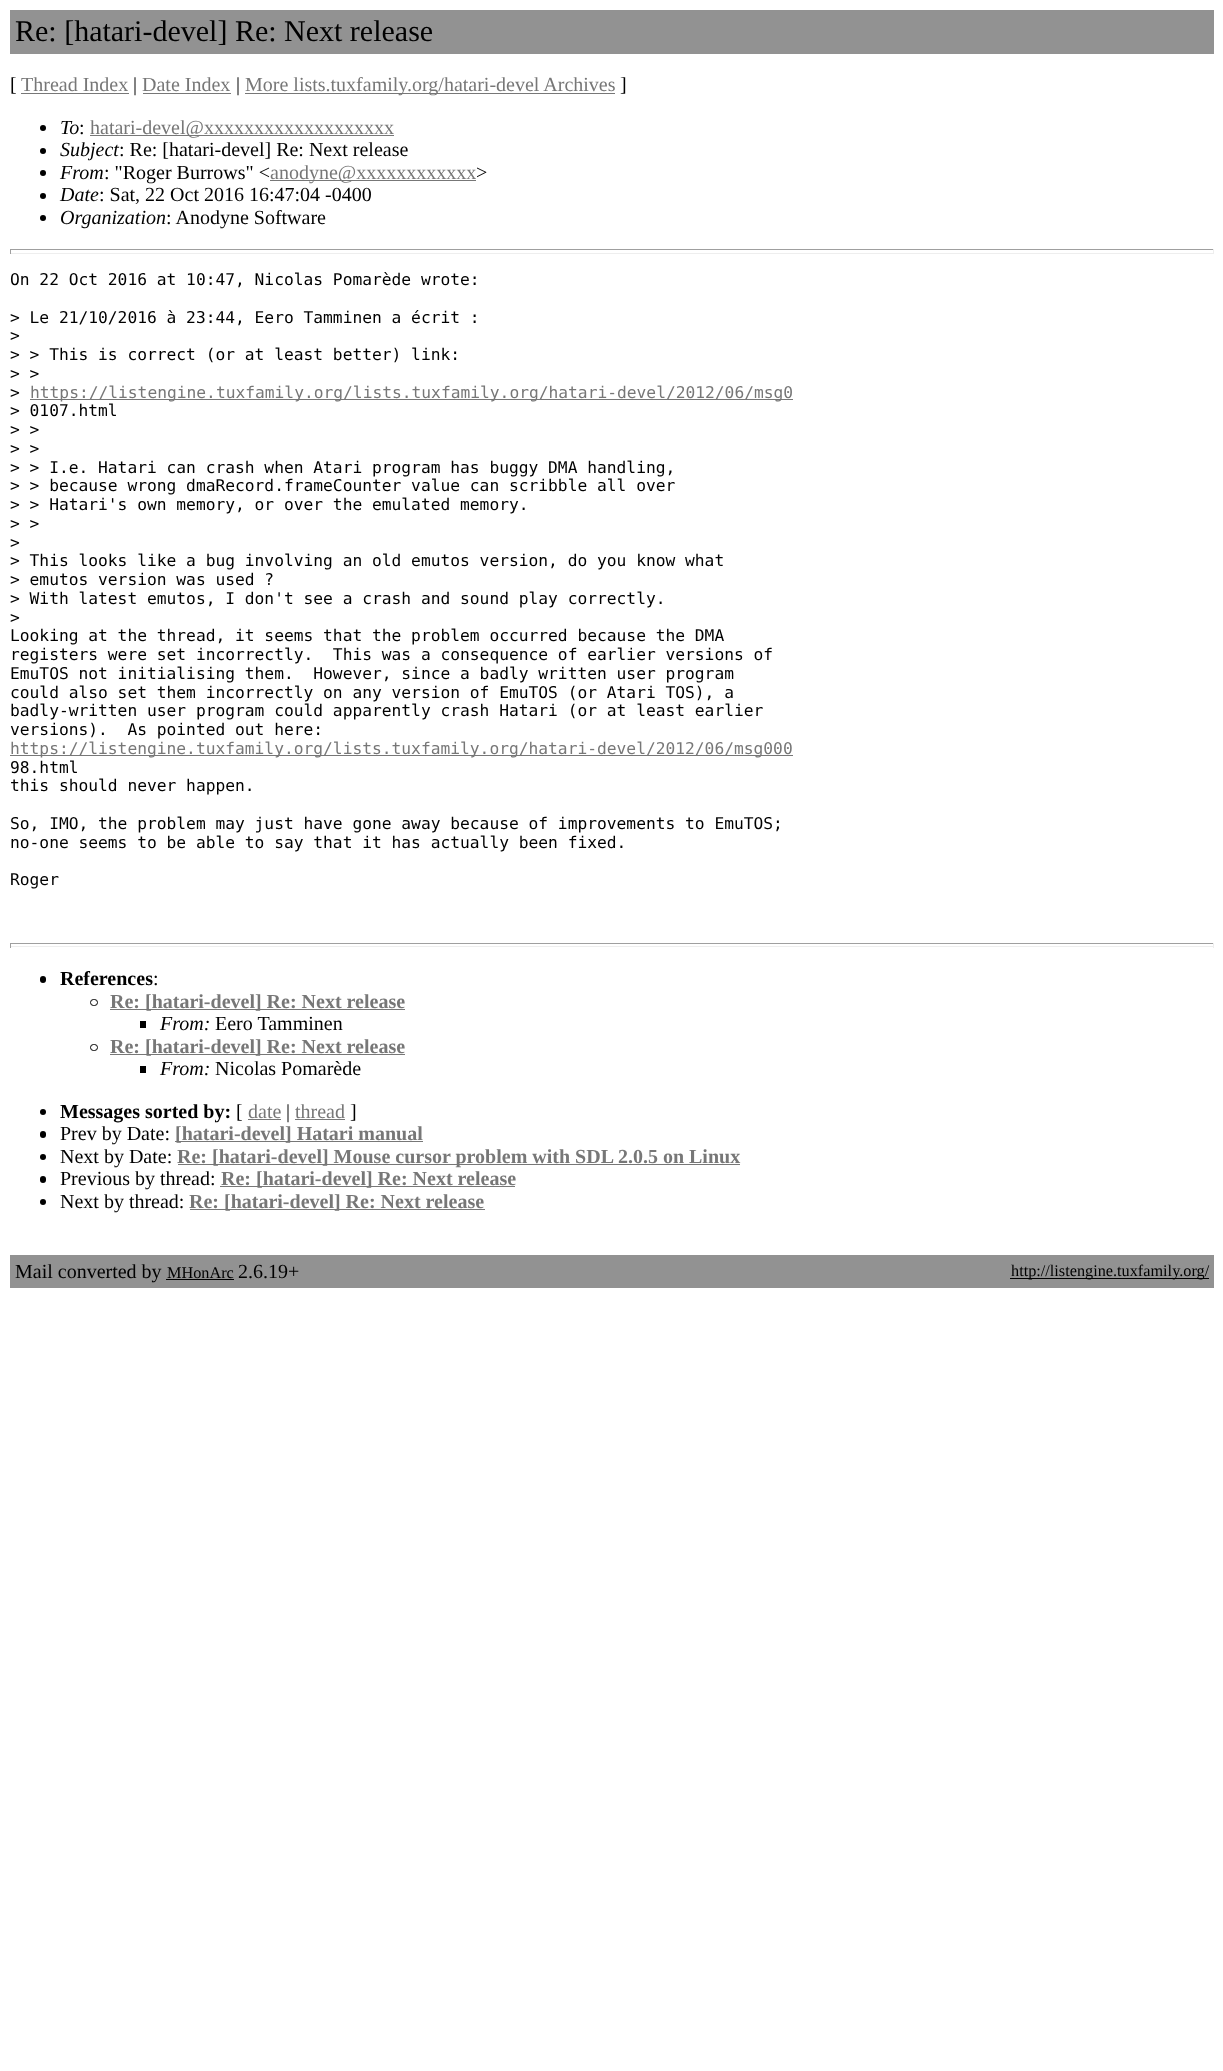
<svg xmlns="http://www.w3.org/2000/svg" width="1223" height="2071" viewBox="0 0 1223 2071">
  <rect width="100%" height="100%" fill="#ffffff"/>
  <rect x="10" y="10" width="1204" height="44" fill="#929292"/>
  <text x="15" y="41" font-family="Liberation Serif" font-size="30" fill="#000000">Re: [hatari-devel] Re: Next release</text>
  <text x="10" y="91" font-family="Liberation Serif" font-size="20" fill="#000000">[</text>
  <text x="21" y="91" font-family="Liberation Serif" font-size="20" fill="#777777">Thread Index</text>
  <rect x="21" y="93" width="108" height="1" fill="#777777"/>
  <text x="133" y="91" font-family="Liberation Serif" font-size="20" fill="#000000">|</text>
  <text x="142" y="91" font-family="Liberation Serif" font-size="20" fill="#777777">Date Index</text>
  <rect x="143" y="93" width="88" height="1" fill="#777777"/>
  <text x="236" y="91" font-family="Liberation Serif" font-size="20" fill="#000000">|</text>
  <rect x="245" y="93" width="370" height="1" fill="#777777"/>
  <text x="245" y="91" font-family="Liberation Serif" font-size="20" fill="#777777">More lists.tuxfamily.org/hatari-devel Archives</text>
  <text x="620" y="91" font-family="Liberation Serif" font-size="20" fill="#000000">]</text>
  <circle cx="43" cy="128" r="3" fill="#000000"/>
  <text x="60" y="134" font-family="Liberation Serif" font-size="20" font-style="italic" fill="#000000">To</text>
  <text x="79" y="134" font-family="Liberation Serif" font-size="20" fill="#000000">:</text>
  <rect x="90" y="135" width="304" height="1" fill="#777777"/>
  <text x="90" y="134" font-family="Liberation Serif" font-size="20" fill="#777777">hatari-devel@xxxxxxxxxxxxxxxxxxx</text>
  <circle cx="43" cy="151" r="3" fill="#000000"/>
  <text x="60" y="156" font-family="Liberation Serif" font-size="20" font-style="italic" fill="#000000">Subject</text>
  <text x="119" y="156" font-family="Liberation Serif" font-size="20" fill="#000000">: Re: [hatari-devel] Re: Next release</text>
  <circle cx="43" cy="173" r="3" fill="#000000"/>
  <text x="60" y="179" font-family="Liberation Serif" font-size="20" font-style="italic" fill="#000000">From</text>
  <text x="104" y="179" font-family="Liberation Serif" font-size="20" fill="#000000">: "Roger Burrows" &lt;</text>
  <rect x="270" y="180" width="206" height="1" fill="#777777"/>
  <text x="270" y="179" font-family="Liberation Serif" font-size="20" fill="#777777">anodyne@xxxxxxxxxxxx</text>
  <text x="476" y="179" font-family="Liberation Serif" font-size="20" fill="#000000">&gt;</text>
  <circle cx="43" cy="196" r="3" fill="#000000"/>
  <text x="60" y="201" font-family="Liberation Serif" font-size="20" font-style="italic" fill="#000000">Date</text>
  <text x="99" y="201" font-family="Liberation Serif" font-size="20" fill="#000000">: Sat, 22 Oct 2016 16:47:04 -0400</text>
  <circle cx="43" cy="218" r="3" fill="#000000"/>
  <text x="60" y="224" font-family="Liberation Serif" font-size="20" font-style="italic" fill="#000000">Organization</text>
  <text x="166" y="224" font-family="Liberation Serif" font-size="20" fill="#000000">: Anodyne Software</text>
  <rect x="10" y="249" width="1204" height="1" fill="#9f9f9f"/>
  <rect x="1213" y="249" width="1" height="5" fill="#eeeeee"/>
  <rect x="10" y="253" width="1204" height="1" fill="#eeeeee"/>
  <rect x="10" y="249" width="1" height="5" fill="#9f9f9f"/>
  <text x="10" y="285" font-family="DejaVu Sans Mono" font-size="16.25" fill="#000000">On 22 Oct 2016 at 10:47, Nicolas Pomarède wrote:</text>
  <text x="10" y="323" font-family="DejaVu Sans Mono" font-size="16.25" fill="#000000">&gt; Le 21/10/2016 à 23:44, Eero Tamminen a écrit :</text>
  <text x="10" y="341" font-family="DejaVu Sans Mono" font-size="16.25" fill="#000000">&gt;</text>
  <text x="10" y="360" font-family="DejaVu Sans Mono" font-size="16.25" fill="#000000">&gt; &gt; This is correct (or at least better) link:</text>
  <text x="10" y="379" font-family="DejaVu Sans Mono" font-size="16.25" fill="#000000">&gt; &gt;</text>
  <text x="10" y="398" font-family="DejaVu Sans Mono" font-size="16.25" fill="#000000">&gt;</text>
  <rect x="30" y="399" width="763" height="1" fill="#777777"/>
  <text x="30" y="398" font-family="DejaVu Sans Mono" font-size="16.25" fill="#777777">https://listengine.tuxfamily.org/lists.tuxfamily.org/hatari-devel/2012/06/msg0</text>
  <text x="10" y="416" font-family="DejaVu Sans Mono" font-size="16.25" fill="#000000">&gt; 0107.html</text>
  <text x="10" y="435" font-family="DejaVu Sans Mono" font-size="16.25" fill="#000000">&gt; &gt;</text>
  <text x="10" y="454" font-family="DejaVu Sans Mono" font-size="16.25" fill="#000000">&gt; &gt;</text>
  <text x="10" y="473" font-family="DejaVu Sans Mono" font-size="16.25" fill="#000000">&gt; &gt; I.e. Hatari can crash when Atari program has buggy DMA handling,</text>
  <text x="10" y="491" font-family="DejaVu Sans Mono" font-size="16.25" fill="#000000">&gt; &gt; because wrong dmaRecord.frameCounter value can scribble all over</text>
  <text x="10" y="510" font-family="DejaVu Sans Mono" font-size="16.25" fill="#000000">&gt; &gt; Hatari's own memory, or over the emulated memory.</text>
  <text x="10" y="529" font-family="DejaVu Sans Mono" font-size="16.25" fill="#000000">&gt; &gt;</text>
  <text x="10" y="548" font-family="DejaVu Sans Mono" font-size="16.25" fill="#000000">&gt;</text>
  <text x="10" y="566" font-family="DejaVu Sans Mono" font-size="16.25" fill="#000000">&gt; This looks like a bug involving an old emutos version, do you know what</text>
  <text x="10" y="585" font-family="DejaVu Sans Mono" font-size="16.25" fill="#000000">&gt; emutos version was used ?</text>
  <text x="10" y="604" font-family="DejaVu Sans Mono" font-size="16.25" fill="#000000">&gt; With latest emutos, I don't see a crash and sound play correctly.</text>
  <text x="10" y="623" font-family="DejaVu Sans Mono" font-size="16.25" fill="#000000">&gt;</text>
  <text x="10" y="641" font-family="DejaVu Sans Mono" font-size="16.25" fill="#000000">Looking at the thread, it seems that the problem occurred because the DMA</text>
  <text x="10" y="660" font-family="DejaVu Sans Mono" font-size="16.25" fill="#000000" xml:space="preserve">registers were set incorrectly.  This was a consequence of earlier versions of</text>
  <text x="10" y="679" font-family="DejaVu Sans Mono" font-size="16.25" fill="#000000" xml:space="preserve">EmuTOS not initialising them.  However, since a badly written user program</text>
  <text x="10" y="698" font-family="DejaVu Sans Mono" font-size="16.25" fill="#000000">could also set them incorrectly on any version of EmuTOS (or Atari TOS), a</text>
  <text x="10" y="716" font-family="DejaVu Sans Mono" font-size="16.25" fill="#000000">badly-written user program could apparently crash Hatari (or at least earlier</text>
  <text x="10" y="735" font-family="DejaVu Sans Mono" font-size="16.25" fill="#000000" xml:space="preserve">versions).  As pointed out here:</text>
  <rect x="10" y="755" width="783" height="1" fill="#777777"/>
  <text x="10" y="754" font-family="DejaVu Sans Mono" font-size="16.25" fill="#777777">https://listengine.tuxfamily.org/lists.tuxfamily.org/hatari-devel/2012/06/msg000</text>
  <text x="10" y="773" font-family="DejaVu Sans Mono" font-size="16.25" fill="#000000">98.html</text>
  <text x="10" y="791" font-family="DejaVu Sans Mono" font-size="16.25" fill="#000000">this should never happen.</text>
  <text x="10" y="829" font-family="DejaVu Sans Mono" font-size="16.25" fill="#000000">So, IMO, the problem may just have gone away because of improvements to EmuTOS;</text>
  <text x="10" y="848" font-family="DejaVu Sans Mono" font-size="16.25" fill="#000000">no-one seems to be able to say that it has actually been fixed.</text>
  <text x="10" y="885" font-family="DejaVu Sans Mono" font-size="16.25" fill="#000000">Roger</text>
  <rect x="10" y="943" width="1204" height="1" fill="#9f9f9f"/>
  <rect x="1213" y="943" width="1" height="5" fill="#eeeeee"/>
  <rect x="10" y="946" width="1204" height="1" fill="#eeeeee"/>
  <rect x="10" y="943" width="1" height="5" fill="#9f9f9f"/>
  <rect x="40" y="976" width="6" height="7" rx="3" fill="#000000"/>
  <text x="60" y="985" font-family="Liberation Serif" font-size="20" font-weight="bold" fill="#000000">References</text>
  <text x="153" y="985" font-family="Liberation Serif" font-size="20" fill="#000000">:</text>
  <rect x="90.5" y="999.5" width="7" height="6" rx="3" fill="none" stroke="#000000"/>
  <rect x="110" y="1009" width="295" height="1" fill="#777777"/>
  <text x="110" y="1008" font-family="Liberation Serif" font-size="20" font-weight="bold" fill="#777777">Re: [hatari-devel] Re: Next release</text>
  <rect x="140" y="1021" width="6" height="7" fill="#000000"/>
  <text x="160" y="1030" font-family="Liberation Serif" font-size="20" font-style="italic" fill="#000000">From:</text>
  <text x="215" y="1030" font-family="Liberation Serif" font-size="20" fill="#000000">Eero Tamminen</text>
  <rect x="90.5" y="1044.5" width="7" height="6" rx="3" fill="none" stroke="#000000"/>
  <rect x="110" y="1054" width="295" height="1" fill="#777777"/>
  <text x="110" y="1053" font-family="Liberation Serif" font-size="20" font-weight="bold" fill="#777777">Re: [hatari-devel] Re: Next release</text>
  <rect x="140" y="1066" width="6" height="7" fill="#000000"/>
  <text x="160" y="1075" font-family="Liberation Serif" font-size="20" font-style="italic" fill="#000000">From:</text>
  <text x="215" y="1075" font-family="Liberation Serif" font-size="20" fill="#000000">Nicolas Pomarède</text>
  <circle cx="43" cy="1112" r="3" fill="#000000"/>
  <text x="60" y="1118" font-family="Liberation Serif" font-size="20" font-weight="bold" fill="#000000">Messages sorted by:</text>
  <text x="236" y="1118" font-family="Liberation Serif" font-size="20" fill="#000000">[</text>
  <text x="248" y="1118" font-family="Liberation Serif" font-size="20" fill="#777777">date</text>
  <rect x="248" y="1119" width="33" height="1" fill="#777777"/>
  <text x="286" y="1118" font-family="Liberation Serif" font-size="20" fill="#000000">|</text>
  <text x="295" y="1118" font-family="Liberation Serif" font-size="20" fill="#777777">thread</text>
  <rect x="295" y="1119" width="50" height="1" fill="#777777"/>
  <text x="350" y="1118" font-family="Liberation Serif" font-size="20" fill="#000000">]</text>
  <rect x="40" y="1131" width="6" height="7" rx="3" fill="#000000"/>
  <text x="60" y="1140" font-family="Liberation Serif" font-size="20" fill="#000000">Prev by Date:</text>
  <rect x="175" y="1141" width="248" height="1" fill="#777777"/>
  <text x="175" y="1140" font-family="Liberation Serif" font-size="20" font-weight="bold" fill="#777777">[hatari-devel] Hatari manual</text>
  <circle cx="43" cy="1157" r="3" fill="#000000"/>
  <text x="60" y="1163" font-family="Liberation Serif" font-size="20" fill="#000000">Next by Date:</text>
  <rect x="178" y="1164" width="562" height="1" fill="#777777"/>
  <text x="177" y="1163" font-family="Liberation Serif" font-size="20" font-weight="bold" fill="#777777">Re: [hatari-devel] Mouse cursor problem with SDL 2.0.5 on Linux</text>
  <rect x="40" y="1176" width="6" height="7" rx="3" fill="#000000"/>
  <text x="60" y="1185" font-family="Liberation Serif" font-size="20" fill="#000000">Previous by thread:</text>
  <rect x="220" y="1186" width="295" height="1" fill="#777777"/>
  <text x="221" y="1185" font-family="Liberation Serif" font-size="20" font-weight="bold" fill="#777777">Re: [hatari-devel] Re: Next release</text>
  <circle cx="43" cy="1202" r="3" fill="#000000"/>
  <text x="60" y="1208" font-family="Liberation Serif" font-size="20" fill="#000000">Next by thread:</text>
  <rect x="190" y="1209" width="295" height="1" fill="#777777"/>
  <text x="189" y="1208" font-family="Liberation Serif" font-size="20" font-weight="bold" fill="#777777">Re: [hatari-devel] Re: Next release</text>
  <rect x="10" y="1255" width="1204" height="33" fill="#929292"/>
  <text x="15" y="1278" font-family="Liberation Serif" font-size="20" fill="#000000">Mail converted by</text>
  <text x="167" y="1278" font-family="Liberation Serif" font-size="16.25" fill="#000000">MHonArc</text>
  <rect x="166" y="1279" width="68" height="1" fill="#000000"/>
  <text x="238" y="1278" font-family="Liberation Serif" font-size="20" fill="#000000">2.6.19+</text>
  <rect x="1010" y="1278" width="199" height="1" fill="#000000"/>
  <text x="1011" y="1276" font-family="Liberation Serif" font-size="16.25" fill="#000000">http://listengine.tuxfamily.org/</text>
</svg>
